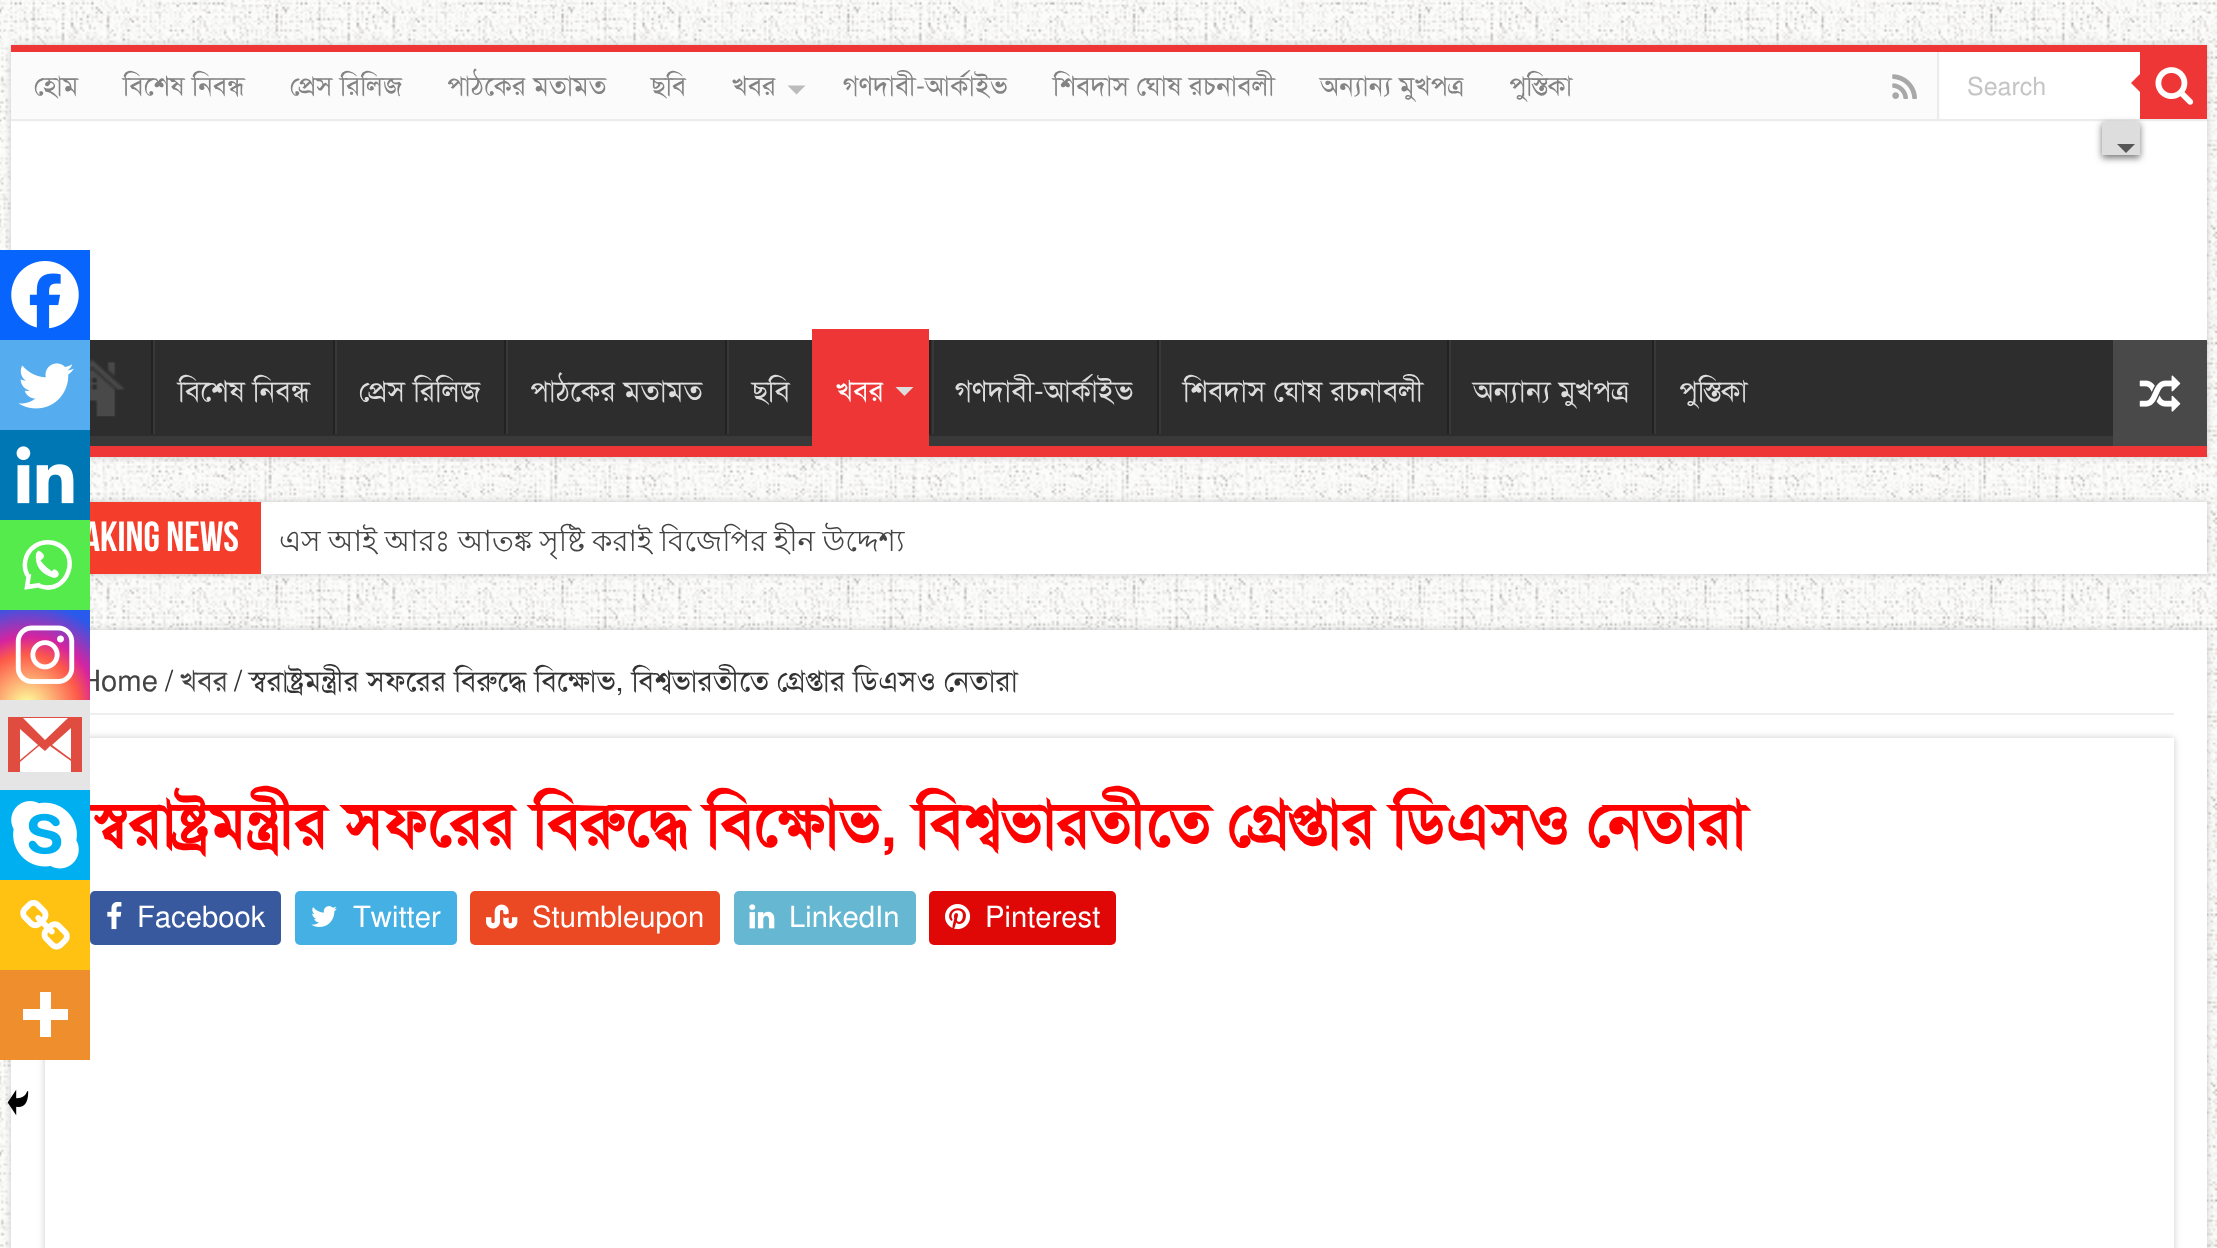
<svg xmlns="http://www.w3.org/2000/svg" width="2217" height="1248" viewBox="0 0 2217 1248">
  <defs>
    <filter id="blur1" x="-50%" y="-200%" width="200%" height="500%"><feGaussianBlur stdDeviation="3.5"/></filter>
    <clipPath id="clip1"><rect x="11" y="340" width="2196" height="106"/></clipPath>
    <radialGradient id="g1" gradientUnits="userSpaceOnUse" cx="27" cy="706" r="115"><stop offset="0" stop-color="#fdf497"/><stop offset="0.05" stop-color="#fdf497"/><stop offset="0.45" stop-color="#fd5949"/><stop offset="0.6" stop-color="#d6249f"/><stop offset="0.9" stop-color="#285aeb"/></radialGradient>
  </defs>
  <rect width="100%" height="100%" fill="#ffffff"/>
  <image x="0" y="0" width="2217" height="1248" href="img1.png"/>
  <rect x="11" y="45" width="2196" height="412" fill="#cacaca" filter="url(#blur1)"/>
  <rect x="11" y="122" width="2196" height="218" fill="#ffffff"/>
  <rect x="11" y="45" width="2196" height="7" fill="#ef3636"/>
  <rect x="11" y="52" width="2196" height="70" fill="#fbfbfb"/>
  <rect x="11" y="119" width="2196" height="2" fill="#ececec"/>
  <text x="34" y="95" font-family="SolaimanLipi" font-size="27" fill="#838383">হোম</text>
  <text x="123" y="95" font-family="SolaimanLipi" font-size="27" fill="#838383">বিশেষ নিবন্ধ</text>
  <text x="290" y="95" font-family="SolaimanLipi" font-size="27" fill="#838383">প্রেস রিলিজ</text>
  <text x="447" y="95" font-family="SolaimanLipi" font-size="27" fill="#838383">পাঠকের মতামত</text>
  <text x="651" y="95" font-family="SolaimanLipi" font-size="27" fill="#838383">ছবি</text>
  <text x="732" y="95" font-family="SolaimanLipi" font-size="27" fill="#838383">খবর</text>
  <path d="M787.5 85.5H805.5L796.5 94.5Z" fill="#bbbbbb"/>
  <text x="843" y="95" font-family="SolaimanLipi" font-size="27" fill="#838383">গণদাবী-আর্কাইভ</text>
  <text x="1053" y="95" font-family="SolaimanLipi" font-size="27" fill="#838383">শিবদাস ঘোষ রচনাবলী</text>
  <text x="1320" y="95" font-family="SolaimanLipi" font-size="27" fill="#838383">অন্যান্য মুখপত্র</text>
  <text x="1509" y="95" font-family="SolaimanLipi" font-size="27" fill="#838383">পুস্তিকা</text>
  <image x="1892" y="74" width="25" height="25" href="img2.png"/>
  <rect x="1940" y="52" width="200" height="67" fill="#ffffff"/>
  <rect x="1937" y="52" width="2" height="67" fill="#ececec"/>
  <text x="1967" y="95" font-family="SolaimanLipi" font-size="25" fill="#c5c5c5">Search</text>
  <rect x="2140" y="52" width="67" height="67" fill="#ef3636"/>
  <image x="2155" y="67" width="39" height="38" href="img3.png"/>
  <path d="M2140 74V92L2131 83Z" fill="#ef3636"/>
  <rect x="90" y="340" width="2023" height="96" fill="#2d2d2d"/>
  <g clip-path="url(#clip1)">
    <path d="M-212 117H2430V668H-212ZM9 326H2205C2206 326 2207 327 2207 328V434C2207 435 2206 436 2205 436H9C8 436 7 435 7 434V328C7 327 8 326 9 326Z" fill="#393939" fill-rule="evenodd"/>
  </g>
  <rect x="90" y="446" width="2117" height="11" fill="#ef3636"/>
  <image x="90" y="359" width="35" height="58" href="img4.png"/>
  <rect x="151" y="340" width="2" height="94" fill="#222222"/>
  <rect x="153" y="340" width="2" height="94" fill="#383838"/>
  <text x="178" y="401" font-family="SolaimanLipi" font-size="29.25" fill="#dddddd">বিশেষ নিবন্ধ</text>
  <rect x="333" y="340" width="2" height="94" fill="#222222"/>
  <rect x="335" y="340" width="2" height="94" fill="#383838"/>
  <text x="359" y="401" font-family="SolaimanLipi" font-size="29.25" fill="#dddddd">প্রেস রিলিজ</text>
  <rect x="504" y="340" width="2" height="94" fill="#222222"/>
  <rect x="506" y="340" width="2" height="94" fill="#383838"/>
  <text x="530" y="401" font-family="SolaimanLipi" font-size="29.25" fill="#dddddd">পাঠকের মতামত</text>
  <rect x="725" y="340" width="2" height="94" fill="#222222"/>
  <rect x="727" y="340" width="2" height="94" fill="#383838"/>
  <text x="752" y="401" font-family="SolaimanLipi" font-size="29.25" fill="#dddddd">ছবি</text>
  <rect x="812" y="329" width="117" height="117" fill="#ef3636"/>
  <text x="836" y="401" font-family="SolaimanLipi" font-size="29.25" fill="#ffffff">খবর</text>
  <path d="M895.5 387H913.5L904.5 396Z" fill="#dddddd"/>
  <rect x="929" y="340" width="2" height="94" fill="#222222"/>
  <rect x="932" y="340" width="2" height="94" fill="#383838"/>
  <text x="955" y="401" font-family="SolaimanLipi" font-size="29.25" fill="#dddddd">গণদাবী-আর্কাইভ</text>
  <rect x="1157" y="340" width="2" height="94" fill="#222222"/>
  <rect x="1159" y="340" width="2" height="94" fill="#383838"/>
  <text x="1183" y="401" font-family="SolaimanLipi" font-size="29.25" fill="#dddddd">শিবদাস ঘোষ রচনাবলী</text>
  <rect x="1447" y="340" width="2" height="94" fill="#222222"/>
  <rect x="1449" y="340" width="2" height="94" fill="#383838"/>
  <text x="1473" y="401" font-family="SolaimanLipi" font-size="29.25" fill="#dddddd">অন্যান্য মুখপত্র</text>
  <rect x="1652" y="340" width="2" height="94" fill="#222222"/>
  <rect x="1654" y="340" width="2" height="94" fill="#383838"/>
  <text x="1679" y="401" font-family="SolaimanLipi" font-size="29.25" fill="#dddddd">পুস্তিকা</text>
  <rect x="2113" y="340" width="94" height="106" fill="#494949"/>
  <image x="2139" y="375" width="42" height="37" href="img5.png"/>
  <rect x="11" y="502" width="2196" height="72" fill="#cacaca" filter="url(#blur1)"/>
  <rect x="261" y="502" width="1946" height="72" fill="#ffffff"/>
  <rect x="90" y="502" width="171" height="72" fill="#f43d2a"/>
  <text x="83" y="551" font-family="Bebas Neue" font-size="42" font-weight="bold" fill="#ffffff">aking News</text>
  <text x="279" y="551" word-spacing="-0.75" font-family="Lohit Bengali" font-size="29.25" fill="#444444">এস আই আরঃ আতঙ্ক সৃষ্টি করাই বিজেপির হীন উদ্দেশ্য</text>
  <rect x="11" y="630" width="2196" height="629" fill="#cacaca" filter="url(#blur1)"/>
  <rect x="11" y="630" width="2196" height="618" fill="#ffffff"/>
  <rect x="90" y="713" width="2084" height="2" fill="#eeeeee"/>
  <text x="80" y="691" font-family="SolaimanLipi" font-size="29.25" fill="#444444">Home</text>
  <text x="165" y="691" font-family="SolaimanLipi" font-size="29.25" fill="#333333">/</text>
  <text x="180" y="691" font-family="SolaimanLipi" font-size="29.25" fill="#444444">খবর</text>
  <text x="234" y="691" font-family="SolaimanLipi" font-size="29.25" fill="#333333">/</text>
  <text x="249" y="691" font-family="SolaimanLipi" font-size="29.25" fill="#333333">স্বরাষ্ট্রমন্ত্রীর সফরের বিরুদ্ধে বিক্ষোভ, বিশ্বভারতীতে গ্রেপ্তার ডিএসও নেতারা</text>
  <rect x="45" y="738" width="2129" height="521" fill="#cacaca" filter="url(#blur1)"/>
  <rect x="45" y="738" width="2129" height="510" fill="#ffffff"/>
  <text x="90" y="846" font-family="SolaimanLipi" font-size="63" font-weight="bold" fill="#ff0000">স্বরাষ্ট্রমন্ত্রীর সফরের বিরুদ্ধে বিক্ষোভ, বিশ্বভারতীতে গ্রেপ্তার ডিএসও নেতারা</text>
  <rect x="0" y="250" width="90" height="90" fill="#0765fe"/>
  <image x="11" y="261" width="68" height="68" href="img6.png"/>
  <rect x="0" y="340" width="90" height="90" fill="#55acee"/>
  <image x="18" y="363" width="56" height="46" href="img7.png"/>
  <rect x="0" y="430" width="90" height="90" fill="#0077b5"/>
  <image x="16" y="446" width="58" height="58" href="img8.png"/>
  <rect x="0" y="520" width="90" height="90" fill="#55eb4c"/>
  <path d="M39.5 586C68 596.5 83 552 54 543C47.5 541.5 40.5 542.5 35 546C24.5 553 21.5 567.5 29 577.5M29 574L27 587L40.5 585" fill="none" stroke="#ffffff" stroke-width="4.5"/>
  <path d="M36 553.5C34.5 565.5 40.5 574 54 578C65 576 54 565 52 571.5C46 567 42 563 40.5 560C49.5 556 38 549 38 551" fill="#ffffff"/>
  <rect x="0" y="610" width="90" height="90" fill="url(#g1)"/>
  <image x="15" y="625" width="60" height="59" href="img9.png"/>
  <rect x="0" y="700" width="90" height="90" fill="#e5e5e5"/>
  <rect x="20" y="718" width="51" height="54" fill="#ffffff"/>
  <path d="M8 772H82V717H8ZM71 761V772H20V762L39 746L45 751L50 746ZM71 759L52 745L71 728ZM68 718L45 740L23 718ZM38 745L20 760V729L38 745" fill="#e14c41"/>
  <rect x="0" y="790" width="90" height="90" fill="#00aff0"/>
  <image x="11" y="801" width="68" height="68" href="img10.png"/>
  <rect x="0" y="880" width="90" height="90" fill="#ffc112"/>
  <image x="20" y="900" width="50" height="50" href="img11.png"/>
  <rect x="0" y="970" width="90" height="90" fill="#ee8e2d"/>
  <path d="M51 1009V992H40V1009H23V1020H40V1037H51V1020H68V1009Z" fill="#ffffff" fill-rule="evenodd"/>
  <image x="7" y="1089" width="22" height="27" href="img12.png"/>
  <rect x="90" y="891" width="191" height="54" rx="5" fill="#39599f"/>
  <image x="107" y="901" width="15" height="29" href="img13.png"/>
  <text x="137" y="927" font-family="SolaimanLipi" font-size="29.25" fill="#ffffff">Facebook</text>
  <rect x="295" y="891" width="162" height="54" rx="5" fill="#45b0e3"/>
  <image x="311" y="906" width="26" height="21" href="img14.png"/>
  <text x="353" y="927" font-family="SolaimanLipi" font-size="29.25" fill="#ffffff">Twitter</text>
  <rect x="470" y="891" width="250" height="54" rx="5" fill="#eb4924"/>
  <image x="486" y="904" width="32" height="25" href="img15.png"/>
  <text x="532" y="927" font-family="SolaimanLipi" font-size="29.25" fill="#ffffff">Stumbleupon</text>
  <rect x="734" y="891" width="182" height="54" rx="5" fill="#65b7d2"/>
  <image x="749" y="904" width="26" height="25" href="img16.png"/>
  <text x="789" y="927" font-family="SolaimanLipi" font-size="29.25" fill="#ffffff">LinkedIn</text>
  <rect x="929" y="891" width="187" height="54" rx="5" fill="#e00707"/>
  <image x="945" y="904" width="26" height="26" href="img17.png"/>
  <text x="985" y="927" font-family="SolaimanLipi" font-size="29.25" fill="#ffffff">Pinterest</text>
  <rect x="2102" y="124" width="38" height="34" fill="#777777" filter="url(#blur1)"/>
  <rect x="2102" y="122" width="38" height="33" fill="#dddddd"/>
  <path d="M2117 144H2135L2126 153Z" fill="#565656"/>
</svg>
